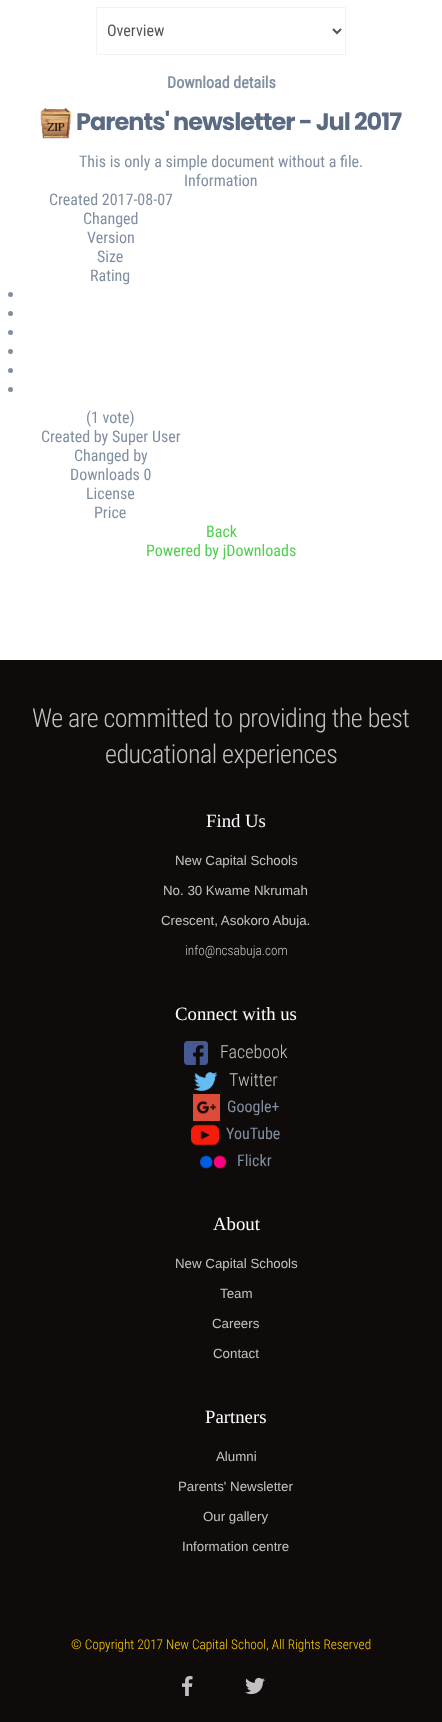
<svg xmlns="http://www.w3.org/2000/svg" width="442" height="1722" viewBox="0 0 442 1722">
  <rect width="100%" height="100%" fill="#ffffff"/>
  <rect x="96.5" y="7.5" width="249" height="47" fill="none" stroke="#f3f3f3"/>
  <path d="M333 29L337 33L341 29" fill="none" stroke="#555555" stroke-width="2"/>
  <text x="107" y="36" font-family="Roboto Condensed" font-size="16" fill="#555555">Overview</text>
  <text x="167" y="88" font-family="Roboto Condensed" font-size="16" font-weight="bold" fill="#818fa1">Download details</text>
  <image x="40" y="108" width="32" height="31" href="img1.png"/>
  <text x="76" y="130" font-family="Poppins" font-size="24" font-weight="bold" letter-spacing="-1" fill="#5a6a83">Parents' newsletter - Jul 2017</text>
  <text x="79" y="167" font-family="Roboto Condensed" font-size="16" fill="#818fa1">This is only a simple document without a file.</text>
  <text x="184" y="186" font-family="Roboto Condensed" font-size="16" fill="#818fa1">Information</text>
  <text x="49" y="205" font-family="Roboto Condensed" font-size="16" fill="#818fa1">Created 2017-08-07</text>
  <text x="83" y="224" font-family="Roboto Condensed" font-size="16" fill="#818fa1">Changed</text>
  <text x="87" y="243" font-family="Roboto Condensed" font-size="16" fill="#818fa1">Version</text>
  <text x="97" y="262" font-family="Roboto Condensed" font-size="16" fill="#818fa1">Size</text>
  <text x="90" y="281" font-family="Roboto Condensed" font-size="16" fill="#818fa1">Rating</text>
  <circle cx="10.5" cy="294.5" r="2.5" fill="#818fa1"/>
  <circle cx="10.5" cy="313.5" r="2.5" fill="#818fa1"/>
  <circle cx="10.5" cy="332.5" r="2.5" fill="#818fa1"/>
  <circle cx="10.5" cy="351.5" r="2.5" fill="#818fa1"/>
  <circle cx="10.5" cy="370.5" r="2.5" fill="#818fa1"/>
  <circle cx="10.5" cy="389.5" r="2.5" fill="#818fa1"/>
  <text x="86" y="423" font-family="Roboto Condensed" font-size="16" fill="#818fa1">(1 vote)</text>
  <text x="41" y="442" font-family="Roboto Condensed" font-size="16" fill="#818fa1">Created by Super User</text>
  <text x="74" y="461" font-family="Roboto Condensed" font-size="16" fill="#818fa1">Changed by</text>
  <text x="70" y="480" font-family="Roboto Condensed" font-size="16" fill="#818fa1">Downloads 0</text>
  <text x="86" y="499" font-family="Roboto Condensed" font-size="16" fill="#818fa1">License</text>
  <text x="94" y="518" font-family="Roboto Condensed" font-size="16" fill="#818fa1">Price</text>
  <text x="206" y="537" font-family="Roboto Condensed" font-size="16" fill="#51cf51">Back</text>
  <text x="146" y="556" font-family="Roboto Condensed" font-size="16" fill="#51cf51">Powered by jDownloads</text>
  <rect x="0" y="660" width="442" height="1062" fill="#0f0b0b"/>
  <text x="32" y="727" font-family="Roboto Condensed" font-size="26" font-weight="300" letter-spacing="-0.5" fill="#c3c2c2">We are committed to providing the best</text>
  <text x="105" y="763" font-family="Roboto Condensed" font-size="26" font-weight="300" letter-spacing="-0.5" fill="#c3c2c2">educational experiences</text>
  <text x="206" y="827" font-family="Liberation Serif" font-size="18.75" fill="#ffffff">Find Us</text>
  <text x="175" y="865" font-family="Liberation Sans" font-size="13.3" fill="#c3c2c2">New Capital Schools</text>
  <text x="163" y="895" font-family="Liberation Sans" font-size="13.3" fill="#c3c2c2">No. 30 Kwame Nkrumah</text>
  <text x="161" y="925" font-family="Liberation Sans" font-size="13.3" fill="#c3c2c2">Crescent, Asokoro Abuja.</text>
  <text x="185" y="955" font-family="Roboto Condensed" font-size="13.3" font-weight="300" fill="#c3c2c2">info@ncsabuja.com</text>
  <text x="175" y="1020" font-family="Liberation Serif" font-size="18.75" fill="#ffffff">Connect with us</text>
  <image x="184" y="1041" width="24" height="24" href="img2.png"/>
  <text x="220" y="1058" font-family="Roboto Condensed" font-size="18" font-weight="300" fill="#c3c2c2">Facebook</text>
  <image x="194" y="1072" width="23" height="19" href="img3.png"/>
  <text x="229" y="1086" font-family="Roboto Condensed" font-size="18" font-weight="300" fill="#c3c2c2">Twitter</text>
  <image x="193" y="1094" width="27" height="27" href="img4.png"/>
  <text x="227" y="1112" font-family="Roboto Condensed" font-size="16" fill="#818fa1">Google+</text>
  <image x="191" y="1124" width="28" height="22" href="img5.png"/>
  <text x="226" y="1139" font-family="Roboto Condensed" font-size="16" fill="#818fa1">YouTube</text>
  <image x="200" y="1155" width="26" height="14" href="img6.png"/>
  <text x="237" y="1166" font-family="Roboto Condensed" font-size="16" fill="#818fa1">Flickr</text>
  <text x="213" y="1230" font-family="Liberation Serif" font-size="18.75" fill="#ffffff">About</text>
  <text x="175" y="1268" font-family="Liberation Sans" font-size="13.3" fill="#c3c2c2">New Capital Schools</text>
  <text x="220" y="1298" font-family="Liberation Sans" font-size="13.3" fill="#c3c2c2">Team</text>
  <text x="212" y="1328" font-family="Liberation Sans" font-size="13.3" fill="#c3c2c2">Careers</text>
  <text x="213" y="1358" font-family="Liberation Sans" font-size="13.3" fill="#c3c2c2">Contact</text>
  <text x="205" y="1423" font-family="Liberation Serif" font-size="18.75" fill="#ffffff">Partners</text>
  <text x="216" y="1461" font-family="Liberation Sans" font-size="13.3" fill="#c3c2c2">Alumni</text>
  <text x="178" y="1491" font-family="Liberation Sans" font-size="13.3" fill="#c3c2c2">Parents' Newsletter</text>
  <text x="203" y="1521" font-family="Liberation Sans" font-size="13.3" fill="#c3c2c2">Our gallery</text>
  <text x="182" y="1551" font-family="Liberation Sans" font-size="13.3" fill="#c3c2c2">Information centre</text>
  <text x="71" y="1649" font-family="Roboto Condensed" font-size="13.3" font-weight="300" fill="#ffcc00">© Copyright 2017 New Capital School, All Rights Reserved</text>
  <image x="182" y="1676" width="11" height="20" href="img7.png"/>
  <image x="245" y="1677" width="20" height="18" href="img8.png"/>
</svg>
